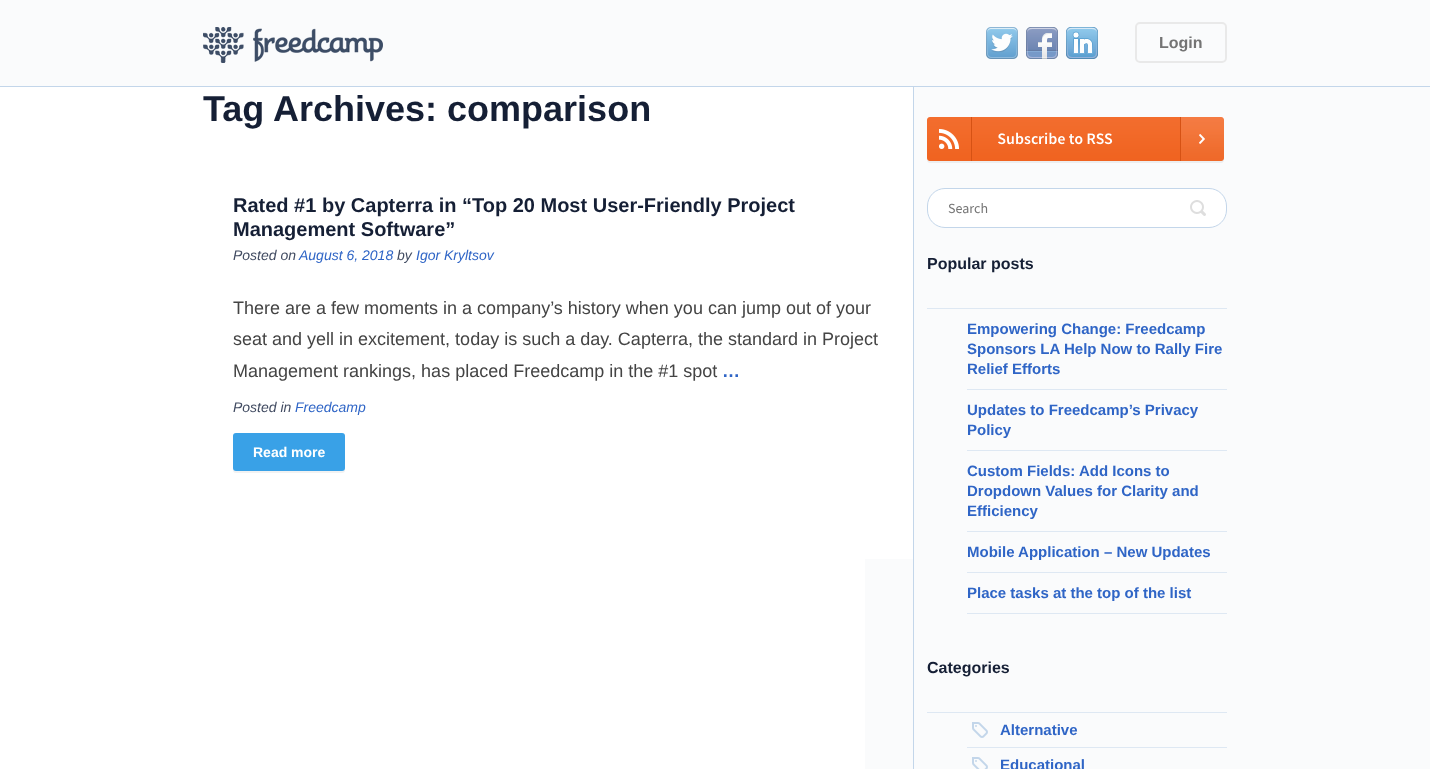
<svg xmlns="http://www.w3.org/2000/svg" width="1430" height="769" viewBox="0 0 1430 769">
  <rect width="100%" height="100%" fill="#fafbfc"/>
  <rect x="0" y="86" width="1430" height="1" fill="#c3d6ea"/>
  <image x="203" y="27" width="180" height="36" href="img1.png"/>
  <image x="986" y="27" width="32" height="32" href="img2.png"/>
  <image x="1026" y="27" width="32" height="32" href="img3.png"/>
  <image x="1066" y="27" width="32" height="32" href="img4.png"/>
  <rect x="1136" y="23" width="90" height="39" rx="4" fill="none" stroke="#e9e9e9" stroke-width="2"/>
  <text x="1159" y="48" font-family="Liberation Sans" font-size="16" font-weight="bold" fill="#747474">Login</text>
  <rect x="0" y="87" width="865" height="682" fill="#ffffff"/>
  <rect x="865" y="87" width="48" height="472" fill="#ffffff"/>
  <text x="203" y="121" font-family="Liberation Sans" font-size="36" font-weight="bold" fill="#151f35">Tag Archives: comparison</text>
  <text x="233" y="212" font-family="Liberation Sans" font-size="20" font-weight="bold" fill="#151f35">Rated #1 by Capterra in “Top 20 Most User-Friendly Project</text>
  <text x="233" y="236" font-family="Liberation Sans" font-size="20" font-weight="bold" fill="#151f35">Management Software”</text>
  <text x="233" y="260" font-family="Liberation Sans" font-size="14" font-style="italic" fill="#414b61">Posted on</text>
  <text x="299" y="260" font-family="Liberation Sans" font-size="14" font-style="italic" fill="#2f65c6">August 6, 2018</text>
  <text x="397" y="260" font-family="Liberation Sans" font-size="14" font-style="italic" fill="#414b61">by</text>
  <text x="416" y="260" font-family="Liberation Sans" font-size="14" font-style="italic" fill="#2f65c6">Igor Kryltsov</text>
  <text x="233" y="314" font-family="Liberation Sans" font-size="18" fill="#444444">There are a few moments in a company’s history when you can jump out of your</text>
  <text x="233" y="345" font-family="Liberation Sans" font-size="18" fill="#444444">seat and yell in excitement, today is such a day. Capterra, the standard in Project</text>
  <text x="233" y="377" font-family="Liberation Sans" font-size="18" fill="#444444">Management rankings, has placed Freedcamp in the #1 spot</text>
  <text x="722" y="377" font-family="Liberation Sans" font-size="18" font-weight="bold" fill="#2f65c6">…</text>
  <text x="233" y="412" font-family="Liberation Sans" font-size="14" font-style="italic" fill="#414b61">Posted in</text>
  <text x="295" y="412" font-family="Liberation Sans" font-size="14" font-style="italic" fill="#2f65c6">Freedcamp</text>
  <path d="M233 468V470C233 472 234 473 236 473H342C344 473 345 472 345 470V468L344 470L342 471H236C234 471 233 470 233 468Z" fill="#f2f2f2"/>
  <rect x="233" y="433" width="112" height="38" rx="3" fill="#39a1e7"/>
  <text x="253" y="457" font-family="Liberation Sans" font-size="14" font-weight="bold" fill="#ffffff">Read more</text>
  <rect x="913" y="87" width="1" height="682" fill="#c3d6ea"/>
  <image x="927" y="117" width="297" height="46" href="img5.png"/>
  <rect x="927.5" y="188.5" width="299" height="39" rx="17.5" fill="#ffffff" stroke="#c3d6ea"/>
  <text x="948" y="213" font-family="Source Sans Pro" font-size="14" fill="#747474">Search</text>
  <image x="1190" y="200" width="16" height="16" href="img6.png"/>
  <text x="927" y="269" font-family="Liberation Sans" font-size="16" font-weight="bold" fill="#151f35">Popular posts</text>
  <rect x="927" y="308" width="300" height="1" fill="#dee8f3"/>
  <rect x="967" y="389" width="260" height="1" fill="#dee8f3"/>
  <text x="967" y="334" font-family="Liberation Sans" font-size="15" font-weight="bold" fill="#2f65c6">Empowering Change: Freedcamp</text>
  <text x="967" y="354" font-family="Liberation Sans" font-size="15" font-weight="bold" fill="#2f65c6">Sponsors LA Help Now to Rally Fire</text>
  <text x="967" y="374" font-family="Liberation Sans" font-size="15" font-weight="bold" fill="#2f65c6">Relief Efforts</text>
  <rect x="967" y="450" width="260" height="1" fill="#dee8f3"/>
  <text x="967" y="415" font-family="Liberation Sans" font-size="15" font-weight="bold" fill="#2f65c6">Updates to Freedcamp’s Privacy</text>
  <text x="967" y="435" font-family="Liberation Sans" font-size="15" font-weight="bold" fill="#2f65c6">Policy</text>
  <rect x="967" y="531" width="260" height="1" fill="#dee8f3"/>
  <text x="967" y="476" font-family="Liberation Sans" font-size="15" font-weight="bold" fill="#2f65c6">Custom Fields: Add Icons to</text>
  <text x="967" y="496" font-family="Liberation Sans" font-size="15" font-weight="bold" fill="#2f65c6">Dropdown Values for Clarity and</text>
  <text x="967" y="516" font-family="Liberation Sans" font-size="15" font-weight="bold" fill="#2f65c6">Efficiency</text>
  <rect x="967" y="572" width="260" height="1" fill="#dee8f3"/>
  <text x="967" y="557" font-family="Liberation Sans" font-size="15" font-weight="bold" fill="#2f65c6">Mobile Application – New Updates</text>
  <rect x="967" y="613" width="260" height="1" fill="#dee8f3"/>
  <text x="967" y="598" font-family="Liberation Sans" font-size="15" font-weight="bold" fill="#2f65c6">Place tasks at the top of the list</text>
  <text x="927" y="673" font-family="Liberation Sans" font-size="16" font-weight="bold" fill="#151f35">Categories</text>
  <rect x="927" y="712" width="300" height="1" fill="#dee8f3"/>
  <rect x="967" y="747" width="260" height="1" fill="#dee8f3"/>
  <image x="972" y="722" width="16" height="16" href="img7.png"/>
  <text x="1000" y="735" font-family="Liberation Sans" font-size="15" font-weight="bold" fill="#2f65c6">Alternative</text>
  <image x="972" y="757" width="16" height="12" href="img8.png"/>
  <text x="1000" y="770" font-family="Liberation Sans" font-size="15" font-weight="bold" fill="#2f65c6">Educational</text>
</svg>
